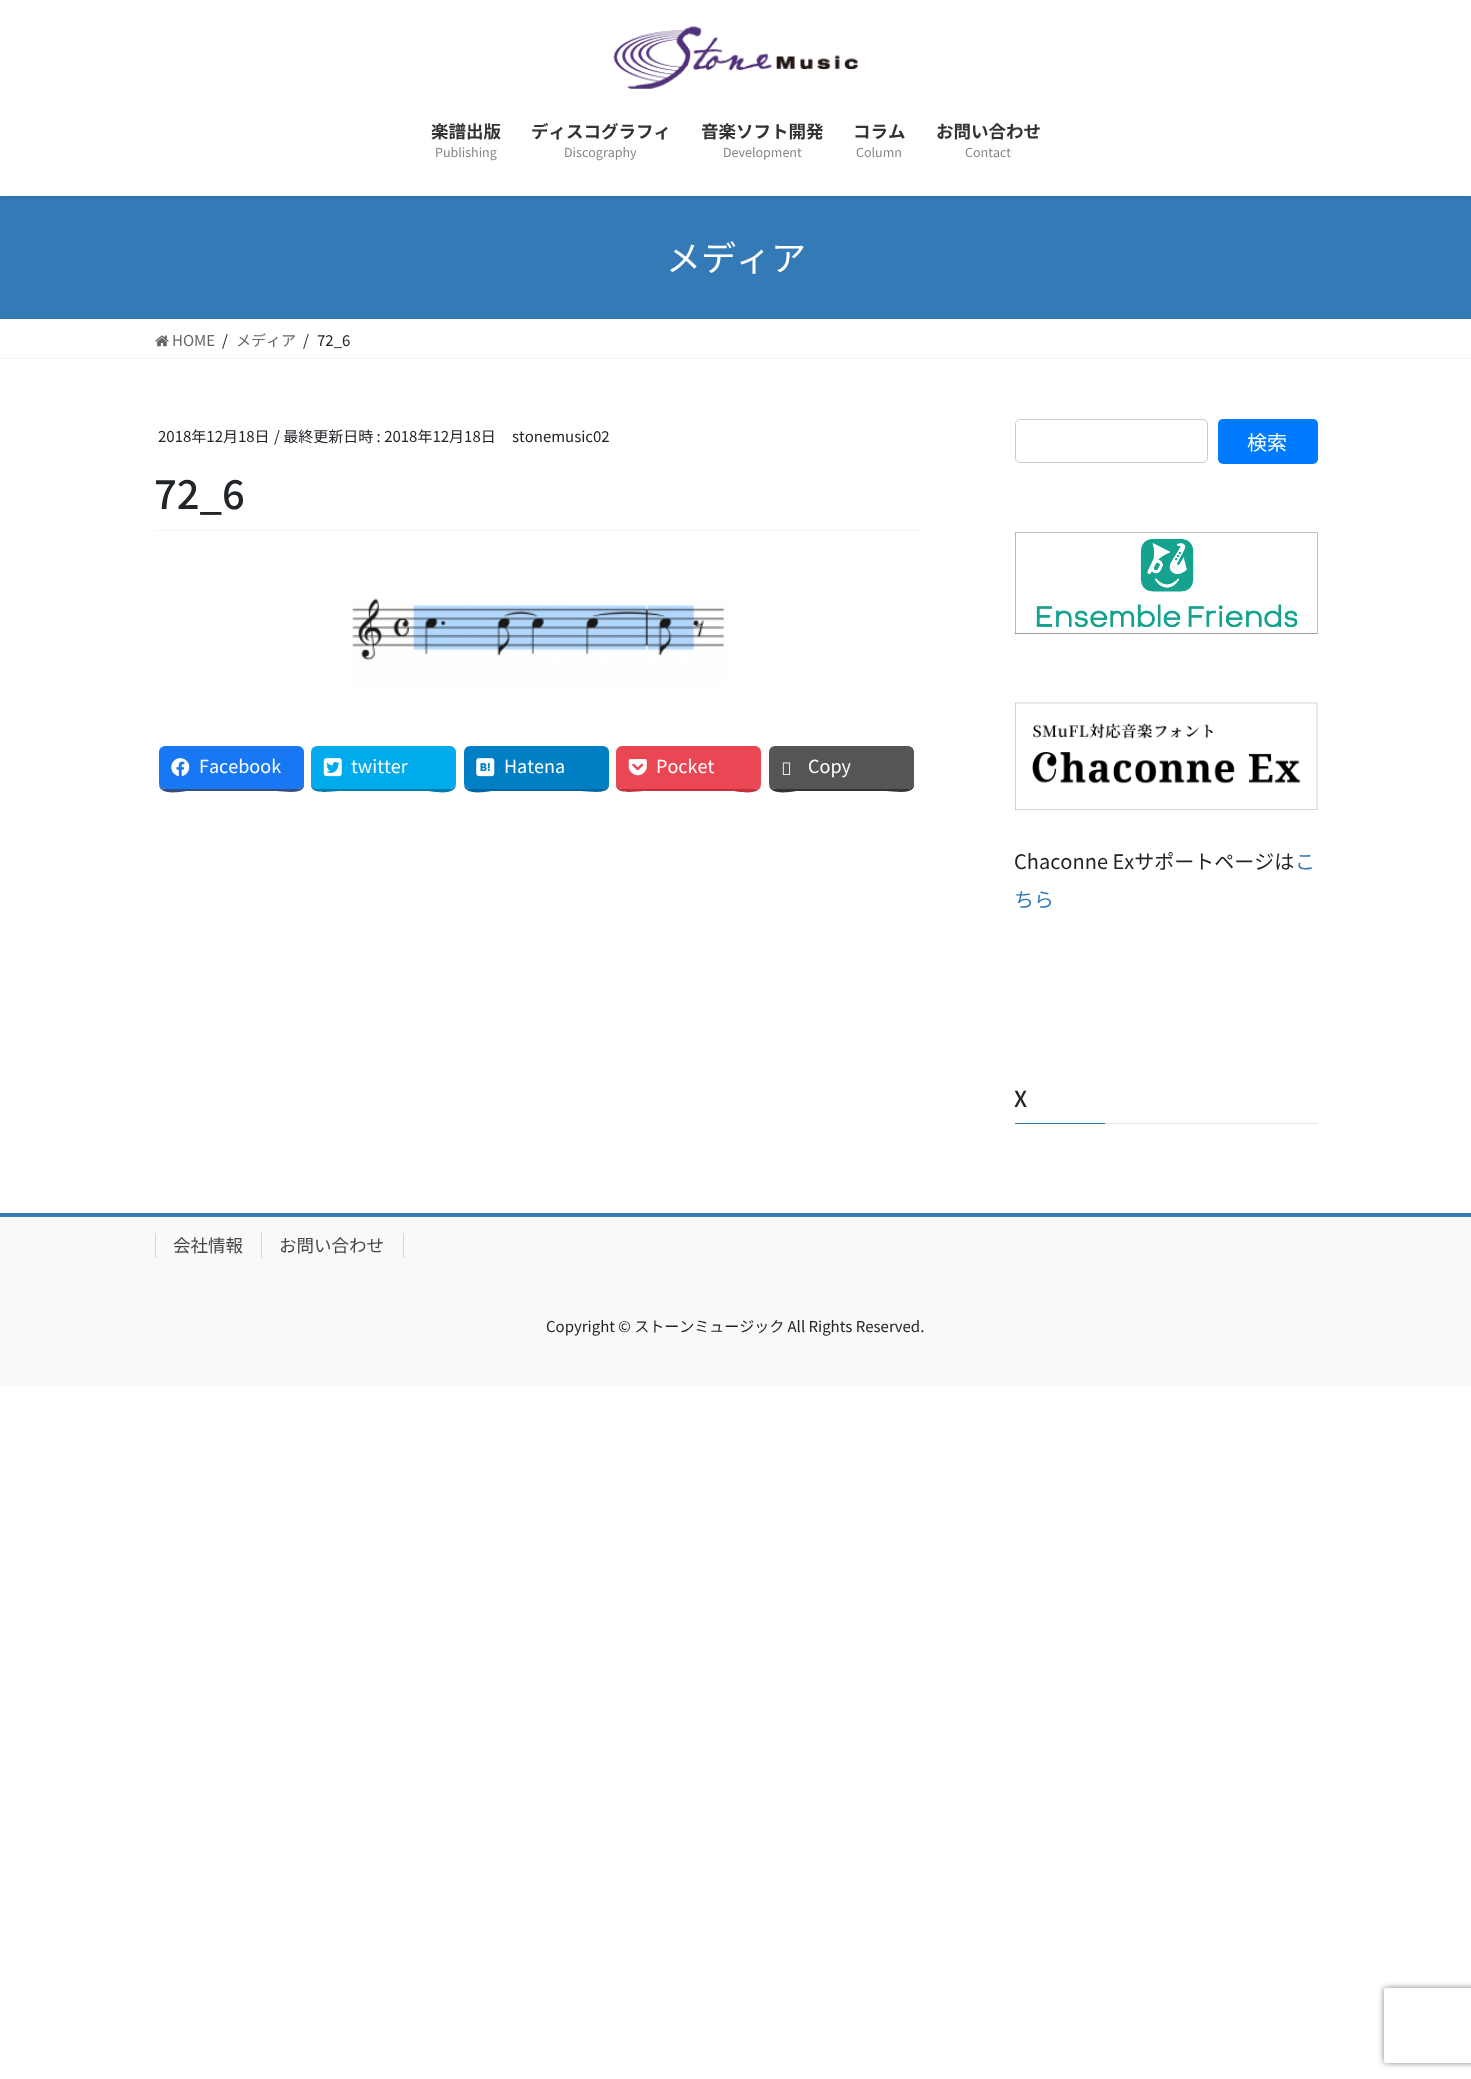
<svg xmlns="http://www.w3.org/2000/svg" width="1471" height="2079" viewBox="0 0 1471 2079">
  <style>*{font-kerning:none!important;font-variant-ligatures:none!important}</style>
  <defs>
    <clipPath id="clip1"><rect x="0" y="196" width="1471" height="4"/></clipPath>
    <filter id="blur1" x="-50%" y="-200%" width="200%" height="500%"><feGaussianBlur stdDeviation="2"/></filter>
    <clipPath id="clip2"><path d="M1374 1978H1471V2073H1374ZM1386.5 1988H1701.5C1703 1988 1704 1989 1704 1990.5V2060.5C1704 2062 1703 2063 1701.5 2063H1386.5C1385 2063 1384 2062 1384 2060.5V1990.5C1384 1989 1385 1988 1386.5 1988Z" clip-rule="evenodd"/></clipPath>
    <filter id="blur2" x="-50%" y="-200%" width="200%" height="500%"><feGaussianBlur stdDeviation="3"/></filter>
  </defs>
  <rect width="100%" height="100%" fill="#ffffff"/>
  <rect x="0" y="196" width="1471" height="123" fill="#337ab7"/>
  <g clip-path="url(#clip1)">
    <rect x="0" y="1" width="1471" height="197" fill="#000000" fill-opacity="0.1" filter="url(#blur1)"/>
  </g>
  <image x="613" y="26" width="245" height="63" href="img1.png"/>
  <text x="431" y="138" font-family="Noto Sans JP" font-size="17.5" font-weight="bold" fill="#333333">楽譜出版</text>
  <text x="435" y="157" font-family="Noto Sans JP" font-size="12.5" fill="#858585">Publishing</text>
  <text x="531" y="138" font-family="Noto Sans JP" font-size="17.5" font-weight="bold" fill="#333333">ディスコグラフィ</text>
  <text x="564" y="157" font-family="Noto Sans JP" font-size="12.5" fill="#858585">Discography</text>
  <text x="701" y="138" font-family="Noto Sans JP" font-size="17.5" font-weight="bold" fill="#333333">音楽ソフト開発</text>
  <text x="723" y="157" font-family="Noto Sans JP" font-size="12.5" fill="#858585">Development</text>
  <text x="853" y="138" font-family="Noto Sans JP" font-size="17.5" font-weight="bold" fill="#333333">コラム</text>
  <text x="856" y="157" font-family="Noto Sans JP" font-size="12.5" fill="#858585">Column</text>
  <text x="936" y="138" font-family="Noto Sans JP" font-size="17.5" font-weight="bold" fill="#333333">お問い合わせ</text>
  <text x="965" y="157" font-family="Noto Sans JP" font-size="12.5" fill="#858585">Contact</text>
  <text x="666" y="271" font-family="Noto Sans JP" font-size="35" fill="#ffffff">メディア</text>
  <rect x="0" y="358" width="1471" height="1" fill="#f2f2f2"/>
  <image x="155" y="335" width="14" height="12" href="img2.png"/>
  <text x="172" y="346" font-family="Noto Sans JP" font-size="15" fill="#666666">HOME</text>
  <text x="222" y="346" font-family="Noto Sans JP" font-size="15" fill="#212529">/</text>
  <text x="236" y="346" font-family="Noto Sans JP" font-size="15" fill="#666666">メディア</text>
  <text x="303" y="346" font-family="Noto Sans JP" font-size="15" fill="#212529">/</text>
  <text x="317" y="346" font-family="Noto Sans JP" font-size="15" fill="#212529">72_6</text>
  <rect x="155" y="530" width="763" height="1" fill="#f2f2f2"/>
  <text x="158" y="442" font-family="Noto Sans JP" font-size="15" fill="#212529">2018年12月18日</text>
  <text x="274" y="442" font-family="Noto Sans JP" font-size="15" fill="#212529">/ 最終更新日時 : 2018年12月18日</text>
  <text x="512" y="442" font-family="Noto Sans JP" font-size="15" fill="#212529">stonemusic02</text>
  <text x="154" y="509" font-family="Noto Sans JP" font-size="40" font-weight="500" fill="#212529">72_6</text>
  <image x="349" y="598" width="375" height="85" href="img3.png"/>
  <path d="M159 784C159 797 184 791 187 791H276C284 791 302 795 304 786V753V782C304 786 301 789 298 789H165C162 789 160 787 159 784Z" fill="#344e84"/>
  <rect x="159" y="746" width="145" height="43" rx="6" fill="#1877f2"/>
  <image x="171" y="758" width="19" height="19" href="img4.png"/>
  <text x="199" y="773" font-family="Noto Sans JP" font-size="18" fill="#ffffff">Facebook</text>
  <path d="M311 753V786C313 795 331 791 339 791H428C431 791 456 797 456 784C455 787 453 789 450 789H318C314 789 311 786 311 782Z" fill="#007eaa"/>
  <rect x="311" y="746" width="145" height="43" rx="6" fill="#00abec"/>
  <image x="323" y="758" width="19" height="19" href="img5.png"/>
  <text x="351" y="773" font-family="Noto Sans JP" font-size="18" fill="#ffffff">twitter</text>
  <path d="M464 784C464 797 489 791 492 791H581C589 791 607 795 609 786V753V782C609 786 606 789 602 789H470C467 789 465 787 464 784Z" fill="#00679f"/>
  <rect x="464" y="746" width="145" height="43" rx="6" fill="#007fc5"/>
  <image x="476" y="758" width="19" height="19" href="img6.png"/>
  <text x="504" y="773" font-family="Noto Sans JP" font-size="18" fill="#ffffff">Hatena</text>
  <path d="M616 753V786C618 795 636 791 644 791H733C736 791 761 797 761 784C760 787 758 789 755 789H622C619 789 616 786 616 782Z" fill="#c1303c"/>
  <rect x="616" y="746" width="145" height="43" rx="6" fill="#ea4654"/>
  <image x="628" y="759" width="19" height="17" href="img7.png"/>
  <text x="656" y="773" font-family="Noto Sans JP" font-size="18" fill="#ffffff">Pocket</text>
  <path d="M769 784C769 797 794 791 797 791H886C894 791 912 795 914 786V753V782C914 786 911 789 908 789H775C772 789 770 787 769 784Z" fill="#333333"/>
  <rect x="769" y="746" width="145" height="43" rx="6" fill="#555555"/>
  <image x="782" y="762" width="9" height="13" href="img8.png"/>
  <text x="808" y="773" font-family="Noto Sans JP" font-size="18" fill="#ffffff">Copy</text>
  <rect x="1015.5" y="419.5" width="192" height="43" rx="4.5" fill="none" stroke="#cccccc"/>
  <rect x="1218" y="419" width="100" height="45" rx="5" fill="#007bff"/>
  <text x="1247" y="450" font-family="Noto Sans JP" font-size="20" fill="#ffffff">検索</text>
  <image x="1015" y="532" width="303" height="102" href="img9.png"/>
  <image x="1015" y="702" width="303" height="108" href="img10.png"/>
  <text x="1014" y="869" font-family="Noto Sans JP" font-size="20" fill="#212529">Chaconne Exサポートページは</text>
  <text x="1295" y="869" font-family="Noto Sans JP" font-size="20" fill="#337ab7">こ</text>
  <text x="1014" y="907" font-family="Noto Sans JP" font-size="20" fill="#337ab7">ちら</text>
  <rect x="1105" y="1123" width="213" height="1" fill="#e6e6e6"/>
  <text x="1014" y="1107" font-family="Noto Sans JP" font-size="22" font-weight="500" fill="#212529">X</text>
  <rect x="1015" y="1123" width="90" height="1" fill="#337ab7"/>
  <rect x="0" y="1217" width="1471" height="169" fill="#f9f9f9"/>
  <rect x="0" y="1213" width="1471" height="4" fill="#337ab7"/>
  <text x="173" y="1252" font-family="Noto Sans JP" font-size="17.5" fill="#464646">会社情報</text>
  <rect x="155" y="1233" width="1" height="25" fill="#d4d4d4"/>
  <text x="279" y="1252" font-family="Noto Sans JP" font-size="17.5" fill="#464646">お問い合わせ</text>
  <rect x="403" y="1233" width="1" height="25" fill="#d4d4d4"/>
  <rect x="261" y="1233" width="1" height="25" fill="#d4d4d4"/>
  <text x="546" y="1332" font-family="Noto Sans JP" font-size="15" fill="#212529">Copyright © ストーンミュージック All Rights Reserved.</text>
  <g clip-path="url(#clip2)">
    <rect x="1384" y="1988" width="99" height="75" rx="2.5" fill="#808080" filter="url(#blur2)"/>
  </g>
</svg>
